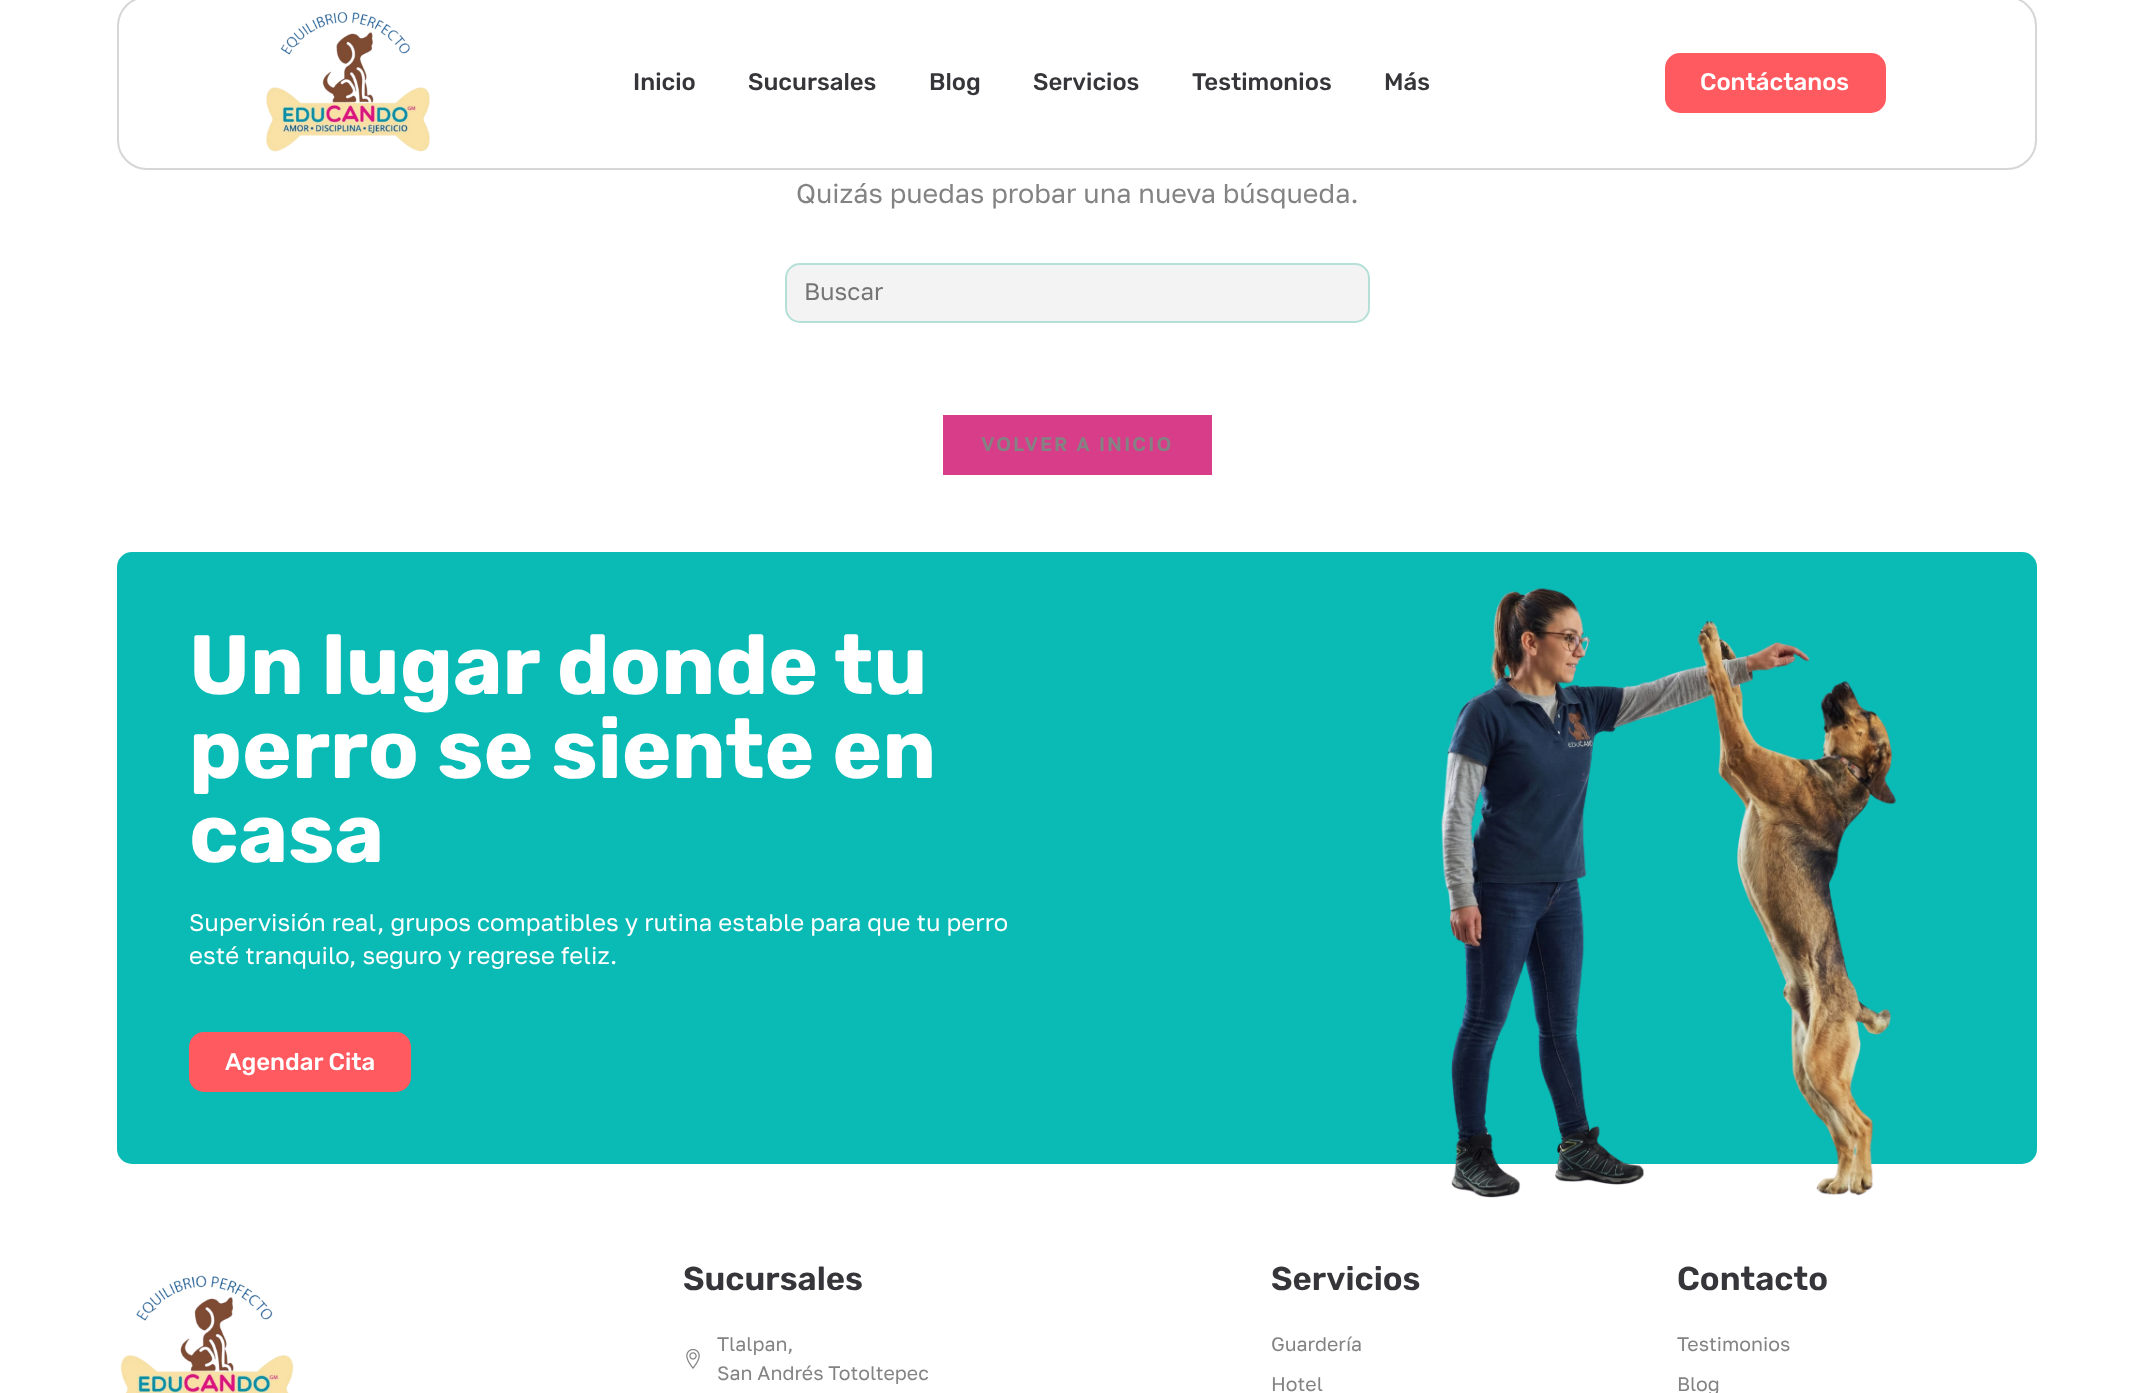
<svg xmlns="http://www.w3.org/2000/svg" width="2154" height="1393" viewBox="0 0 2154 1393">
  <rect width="100%" height="100%" fill="#ffffff"/>
  <rect x="118" y="-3" width="1918" height="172" rx="29" fill="none" stroke="#d6d6d6" stroke-width="2"/>
  <image x="266" y="12" width="164" height="140" href="img1.png"/>
  <text x="633" y="90" font-family="Rubik" font-size="24" font-weight="500" fill="#363539">Inicio</text>
  <text x="748" y="90" font-family="Rubik" font-size="24" font-weight="500" fill="#363539">Sucursales</text>
  <text x="929" y="90" font-family="Rubik" font-size="24" font-weight="500" fill="#363539">Blog</text>
  <text x="1033" y="90" font-family="Rubik" font-size="24" font-weight="500" fill="#363539">Servicios</text>
  <text x="1192" y="90" font-family="Rubik" font-size="24" font-weight="500" fill="#363539">Testimonios</text>
  <text x="1384" y="90" font-family="Rubik" font-size="24" font-weight="500" fill="#363539">Más</text>
  <rect x="1665" y="53" width="221" height="60" rx="15" fill="#ff5a60"/>
  <text x="1700" y="90" font-family="Rubik" font-size="24" font-weight="500" fill="#ffffff">Contáctanos</text>
  <text x="796" y="203" font-family="Golos Text" font-size="27" fill="#838383">Quizás puedas probar una nueva búsqueda.</text>
  <rect x="786" y="264" width="583" height="58" rx="14" fill="#f3f3f3" stroke="#b5e0d8" stroke-width="2"/>
  <text x="804" y="300" font-family="Golos Text" font-size="24" fill="#757575">Buscar</text>
  <rect x="943" y="415" width="269" height="60" fill="#d83d89"/>
  <text x="981" y="451" font-family="Golos Text" font-size="19.5" font-weight="600" letter-spacing="2" fill="#838383">VOLVER A INICIO</text>
  <rect x="117" y="552" width="1920" height="612" rx="15" fill="#0abab5"/>
  <text x="189" y="694" font-family="Rubik" font-size="84" font-weight="bold" fill="#ffffff">Un lugar donde tu</text>
  <text x="189" y="778" font-family="Rubik" font-size="84" font-weight="bold" fill="#ffffff">perro se siente en</text>
  <text x="189" y="862" font-family="Rubik" font-size="84" font-weight="bold" fill="#ffffff">casa</text>
  <text x="189" y="931" font-family="Golos Text" font-size="24" fill="#ffffff">Supervisión real, grupos compatibles y rutina estable para que tu perro</text>
  <text x="189" y="964" font-family="Golos Text" font-size="24" fill="#ffffff">esté tranquilo, seguro y regrese feliz.</text>
  <rect x="189" y="1032" width="222" height="60" rx="15" fill="#ff5a60"/>
  <text x="225" y="1070" font-family="Rubik" font-size="24" font-weight="500" fill="#ffffff">Agendar Cita</text>
  <image x="1441" y="588" width="455" height="610" href="img2.png"/>
  <image x="120" y="1275" width="174" height="118" href="img3.png"/>
  <text x="683" y="1290" font-family="Rubik" font-size="33" font-weight="600" fill="#363539">Sucursales</text>
  <image x="686" y="1349" width="14" height="20" href="img4.png"/>
  <text x="717" y="1351" font-family="Golos Text" font-size="19.5" fill="#838383">Tlalpan,</text>
  <text x="717" y="1380" font-family="Golos Text" font-size="19.5" fill="#838383">San Andrés Totoltepec</text>
  <text x="1271" y="1290" font-family="Rubik" font-size="33" font-weight="600" fill="#363539">Servicios</text>
  <text x="1271" y="1351" font-family="Golos Text" font-size="19.5" fill="#838383">Guardería</text>
  <text x="1271" y="1391" font-family="Golos Text" font-size="19.5" fill="#838383">Hotel</text>
  <text x="1677" y="1290" font-family="Rubik" font-size="33" font-weight="600" fill="#363539">Contacto</text>
  <text x="1677" y="1351" font-family="Golos Text" font-size="19.5" fill="#838383">Testimonios</text>
  <text x="1677" y="1391" font-family="Golos Text" font-size="19.5" fill="#838383">Blog</text>
</svg>
